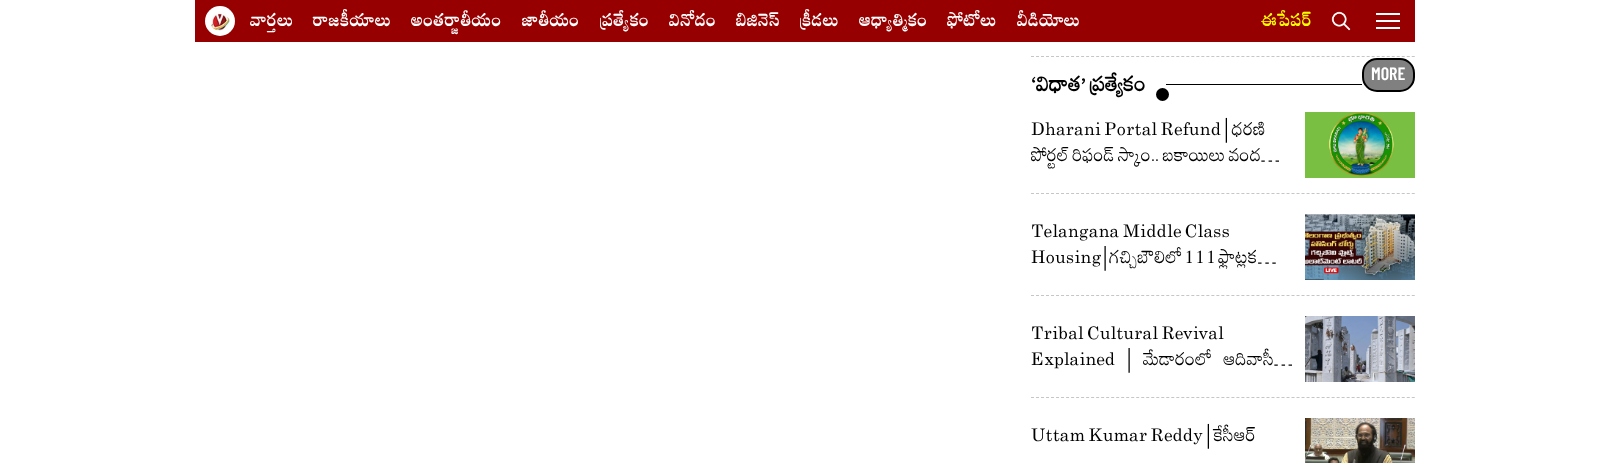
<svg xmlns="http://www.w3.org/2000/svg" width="1610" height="463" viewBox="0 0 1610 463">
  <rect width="100%" height="100%" fill="#ffffff"/>
  <rect x="195" y="0" width="1220" height="42" fill="#960000"/>
  <circle cx="220" cy="21" r="15" fill="#ffffff"/>
  <image x="210" y="11" width="20" height="20" href="img1.png"/>
  <text x="250" y="26" font-family="'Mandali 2'" font-size="18" font-weight="bold" fill="#ffffff">వార్త‌లు</text>
  <text x="313" y="26" font-family="'Mandali 2'" font-size="18" font-weight="bold" fill="#ffffff">రాజకీయాలు</text>
  <text x="411" y="26" font-family="'Mandali 2'" font-size="18" font-weight="bold" fill="#ffffff">అంత‌ర్జాతీయం</text>
  <text x="522" y="26" font-family="'Mandali 2'" font-size="18" font-weight="bold" fill="#ffffff">జాతీయం</text>
  <text x="600" y="26" font-family="'Mandali 2'" font-size="18" font-weight="bold" fill="#ffffff">ప్రత్యేకం</text>
  <text x="669" y="26" font-family="'Mandali 2'" font-size="18" font-weight="bold" fill="#ffffff">వినోదం</text>
  <text x="736" y="26" font-family="'Mandali 2'" font-size="18" font-weight="bold" fill="#ffffff">బిజినెస్</text>
  <text x="800" y="26" font-family="'Mandali 2'" font-size="18" font-weight="bold" fill="#ffffff">క్రీడలు</text>
  <text x="859" y="26" font-family="'Mandali 2'" font-size="18" font-weight="bold" fill="#ffffff">ఆధ్యాత్మికం</text>
  <text x="947" y="26" font-family="'Mandali 2'" font-size="18" font-weight="bold" fill="#ffffff">ఫోటోలు</text>
  <text x="1017" y="26" font-family="'Mandali 2'" font-size="18" font-weight="bold" fill="#ffffff">వీడియోలు</text>
  <text x="1261" y="26" font-family="'Mandali 2'" font-size="18" font-weight="bold" fill="#ffff00">ఈపేపర్</text>
  <image x="1331" y="11" width="20" height="20" href="img2.png"/>
  <rect x="1376" y="13" width="24" height="2" fill="#ffffff"/>
  <rect x="1376" y="20" width="24" height="2" fill="#ffffff"/>
  <rect x="1376" y="27" width="24" height="2" fill="#ffffff"/>
  <path d="M1031 56.5H1415" fill="none" stroke="#c5c6c9" stroke-dasharray="3 2.01"/>
  <text x="1031" y="91" font-family="Mandali" font-size="24" font-weight="bold" fill="#000000">‘విధాత’ ప్రత్యేకం</text>
  <rect x="1166" y="84" width="196" height="1" fill="#000000"/>
  <circle cx="1162.5" cy="94.5" r="6.5" fill="#000000"/>
  <rect x="1363" y="59" width="51" height="32" rx="14" fill="#808080" stroke="#000000" stroke-width="2"/>
  <text x="1371" y="80" font-family="Barlow Condensed" font-size="18" font-weight="600" fill="#ffffff">MORE</text>
  <path d="M1031 193.5H1415" fill="none" stroke="#c5c6c9" stroke-dasharray="3 2.01"/>
  <text x="1031" y="135" font-family="Mandali" font-size="21" fill="#000000">Dharani Portal Refund | ధరణి</text>
  <text x="1031" y="161" font-family="Mandali" font-size="21" fill="#000000">పోర్టల్‌ రిఫండ్‌ స్కాం.. బకాయిలు వంద…</text>
  <image x="1305" y="112" width="110" height="66" href="img3.png"/>
  <path d="M1031 295.5H1415" fill="none" stroke="#c5c6c9" stroke-dasharray="3 2.01"/>
  <text x="1031" y="237" font-family="Mandali" font-size="21" fill="#000000">Telangana Middle Class</text>
  <text x="1031" y="263" word-spacing="-1.5" font-family="Mandali" font-size="21" fill="#000000">Housing | గచ్చిబౌలిలో 111 ఫ్లాట్లక…</text>
  <image x="1305" y="214" width="110" height="66" href="img4.png"/>
  <path d="M1031 397.5H1415" fill="none" stroke="#c5c6c9" stroke-dasharray="3 2.01"/>
  <text x="1031" y="339" font-family="Mandali" font-size="21" fill="#000000">Tribal Cultural Revival</text>
  <text x="1031" y="365" word-spacing="8.5" font-family="Mandali" font-size="21" fill="#000000">Explained | మేడారంలో ఆదివాసీ…</text>
  <image x="1305" y="316" width="110" height="66" href="img5.png"/>
  <text x="1031" y="441" font-family="Mandali" font-size="21" fill="#000000">Uttam Kumar Reddy | కేసీఆర్</text>
  <image x="1305" y="418" width="110" height="45" href="img6.png"/>
</svg>
